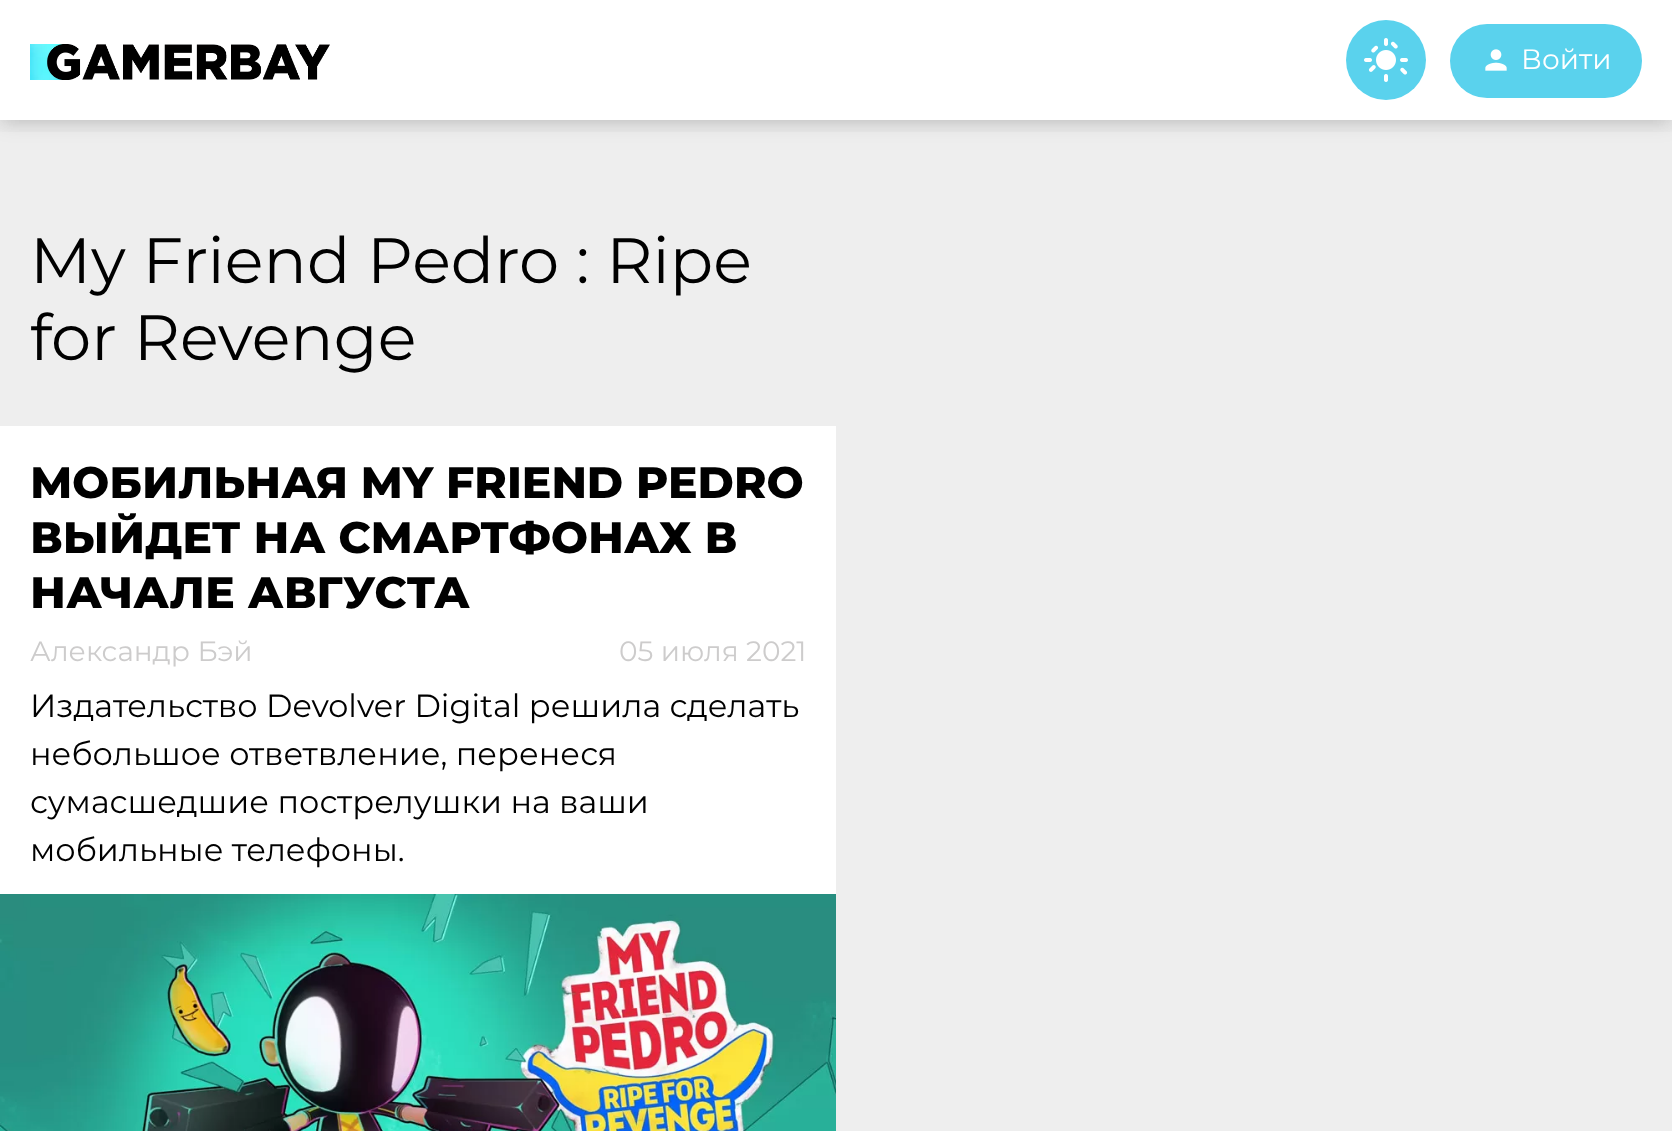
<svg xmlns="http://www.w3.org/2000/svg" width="1672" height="1131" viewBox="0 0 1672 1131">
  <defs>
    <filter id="blur1" x="-50%" y="-200%" width="200%" height="500%"><feGaussianBlur stdDeviation="10"/></filter>
    <clipPath id="clip1"><rect x="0" y="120" width="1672" height="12"/></clipPath>
  </defs>
  <rect width="100%" height="100%" fill="#eeeeee"/>
  <rect x="0" y="4" width="1672" height="120" fill="#000000" fill-opacity="0.1" filter="url(#blur1)"/>
  <rect x="0" y="0" width="1672" height="120" fill="#ffffff"/>
  <g clip-path="url(#clip1)">
    <rect x="0" y="4" width="1672" height="120" fill="#000000" fill-opacity="0.1" filter="url(#blur1)"/>
  </g>
  <image x="30" y="44" width="300" height="36" href="img1.png"/>
  <circle cx="1386" cy="60" r="40" fill="#5ad2ed"/>
  <image x="1364" y="38" width="44" height="44" href="img2.png"/>
  <rect x="1450" y="24" width="192" height="74" rx="37" fill="#5ad2ed"/>
  <image x="1485" y="49" width="22" height="22" href="img3.png"/>
  <text x="1521" y="69" font-family="Montserrat" font-size="28" fill="#ffffff">Войти</text>
  <text x="30" y="283" font-family="Montserrat" font-size="64" fill="#000000">My Friend Pedro : Ripe</text>
  <text x="30" y="360" font-family="Montserrat" font-size="64" fill="#000000">for Revenge</text>
  <rect x="0" y="426" width="836" height="468" fill="#ffffff"/>
  <text x="30" y="498" font-family="Montserrat" font-size="44" font-weight="800" fill="#000000">МОБИЛЬНАЯ MY FRIEND PEDRO</text>
  <text x="30" y="553" font-family="Montserrat" font-size="44" font-weight="800" fill="#000000">ВЫЙДЕТ НА СМАРТФОНАХ В</text>
  <text x="30" y="608" font-family="Montserrat" font-size="44" font-weight="800" fill="#000000">НАЧАЛЕ АВГУСТА</text>
  <text x="30" y="661" font-family="Montserrat" font-size="28" fill="#cdcccc">Александр Бэй</text>
  <text x="619" y="661" font-family="Montserrat" font-size="28" fill="#cdcccc">05 июля 2021</text>
  <text x="30" y="717" font-family="Montserrat" font-size="32" fill="#000000">Издательство Devolver Digital решила сделать</text>
  <text x="30" y="765" font-family="Montserrat" font-size="32" fill="#000000">небольшое ответвление, перенеся</text>
  <text x="30" y="813" font-family="Montserrat" font-size="32" fill="#000000">сумасшедшие пострелушки на ваши</text>
  <text x="30" y="861" font-family="Montserrat" font-size="32" fill="#000000">мобильные телефоны.</text>
  <image x="0" y="894" width="836" height="237" href="img4.png"/>
</svg>
